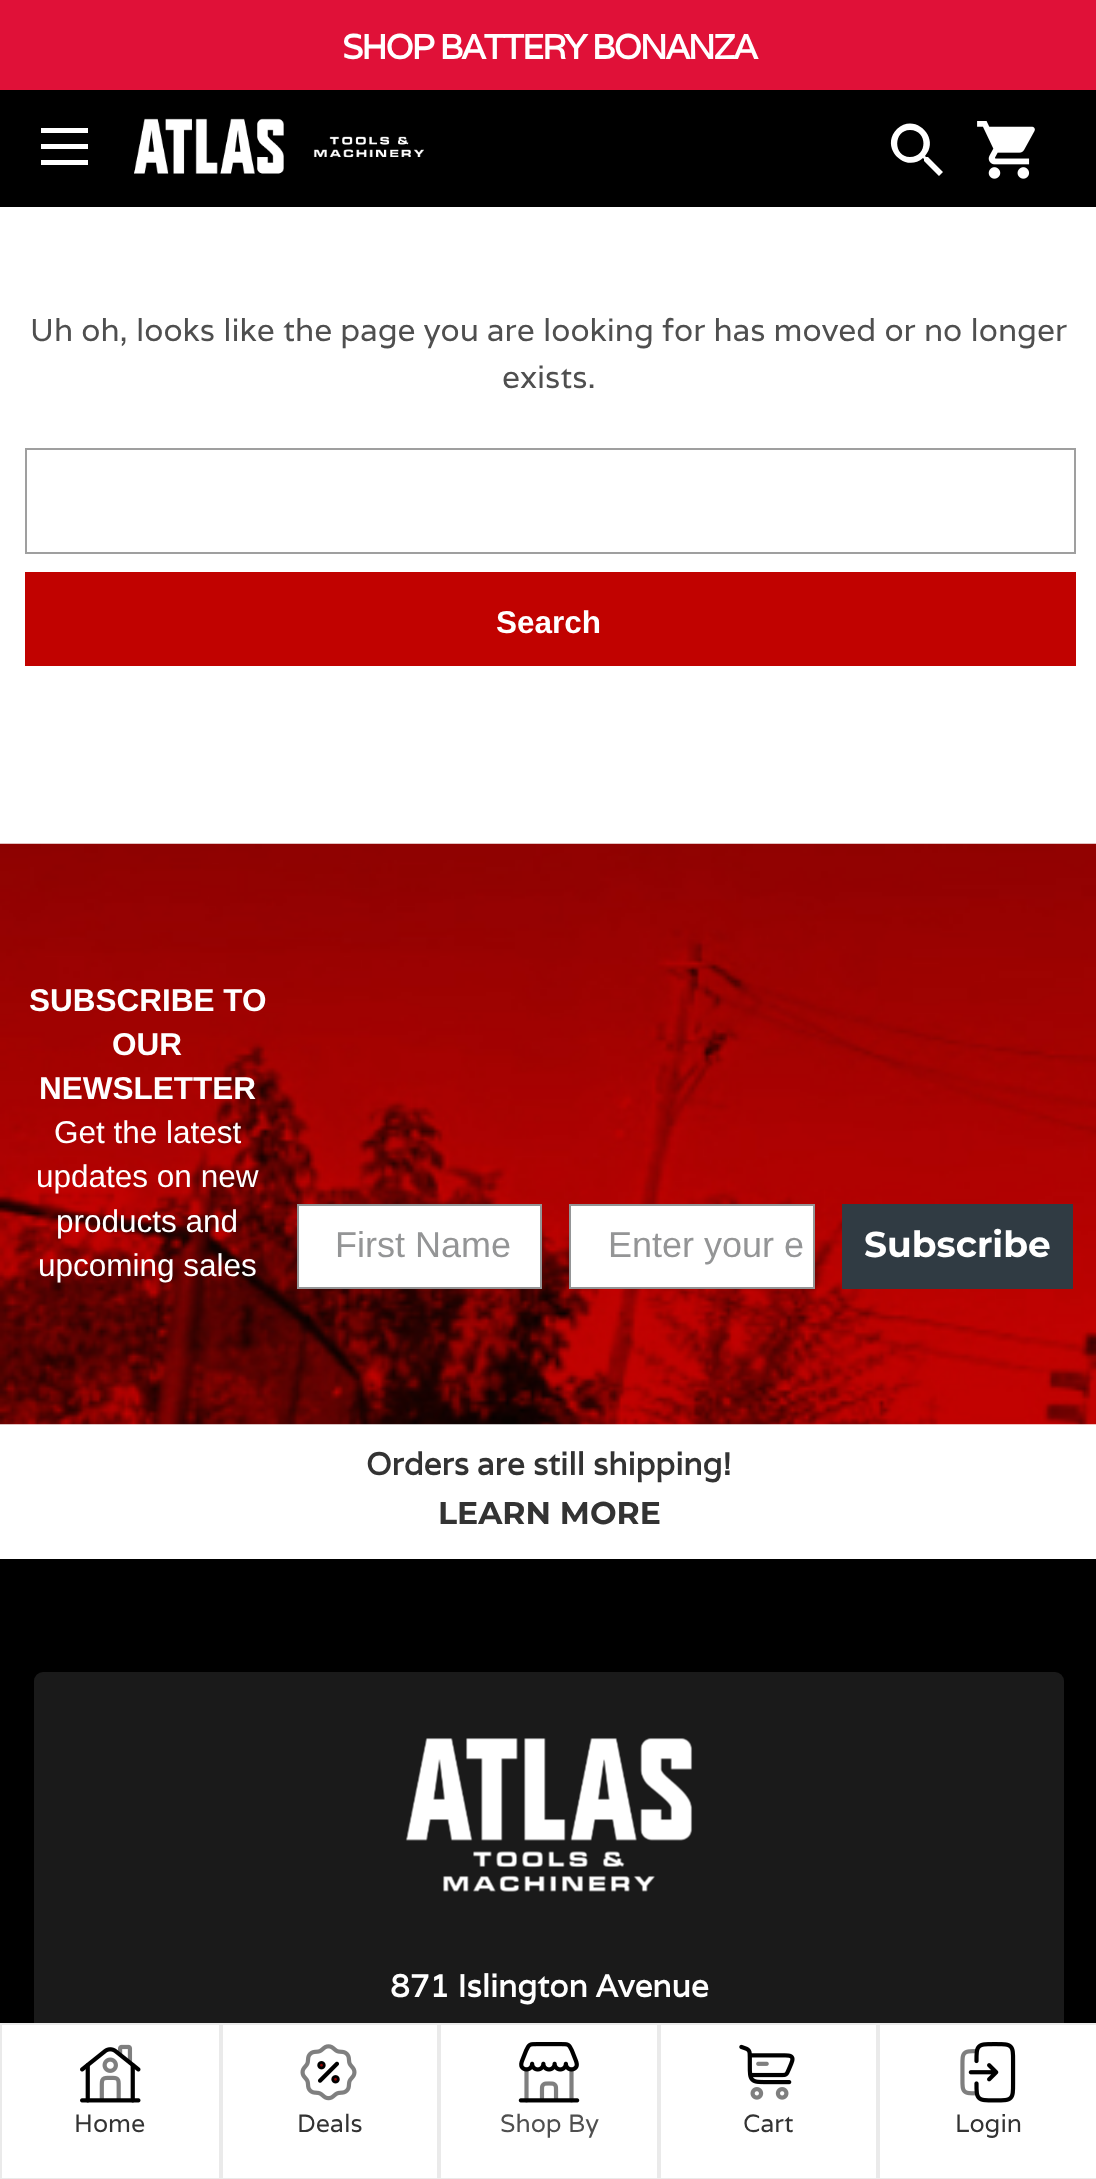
<svg xmlns="http://www.w3.org/2000/svg" width="1096" height="2179" viewBox="0 0 1096 2179">
  <rect width="100%" height="100%" fill="#ffffff"/>
  <rect x="0" y="0" width="1096" height="90" fill="#e01138"/>
  <text x="342" y="59" font-family="Varela" font-size="34.6" font-weight="bold" letter-spacing="-2" fill="#ffffff">SHOP BATTERY BONANZA</text>
  <rect x="0" y="90" width="1096" height="117" fill="#000000"/>
  <rect x="41" y="144" width="47" height="5" fill="#ffffff"/>
  <rect x="41" y="128" width="47" height="5" fill="#ffffff"/>
  <rect x="41" y="160" width="47" height="5" fill="#ffffff"/>
  <image x="134" y="118" width="290" height="56" href="img1.png"/>
  <path d="M928 157H926L925 156C941 138 915 112 897 129C879 147 905 174 923 158L924 159V161L939 176L943 172ZM910 157C893 157 893 130 910 130C928 130 928 157 910 157Z" fill="#ffffff"/>
  <image x="977" y="121" width="58" height="58" href="img2.png"/>
  <text x="30" y="341" font-family="Varela" font-size="31.5" fill="#4f4f4f">Uh oh, looks like the page you are looking for has moved or no longer</text>
  <text x="502" y="388" font-family="Varela" font-size="31.5" fill="#4f4f4f">exists.</text>
  <rect x="26" y="449" width="1049" height="104" fill="none" stroke="#9f9f9f" stroke-width="2"/>
  <rect x="25" y="572" width="1051" height="94" fill="#c10200"/>
  <text x="496" y="633" font-family="Liberation Sans" font-size="31.5" font-weight="bold" fill="#ffffff">Search</text>
  <image x="0" y="843" width="1096" height="582" href="img3.png"/>
  <text x="29" y="1011" font-family="Liberation Sans" font-size="31.5" font-weight="bold" fill="#ffffff">SUBSCRIBE TO</text>
  <text x="112" y="1055" font-family="Liberation Sans" font-size="31.5" font-weight="bold" fill="#ffffff">OUR</text>
  <text x="39" y="1099" font-family="Liberation Sans" font-size="31.5" font-weight="bold" fill="#ffffff">NEWSLETTER</text>
  <text x="54" y="1143" font-family="Liberation Sans" font-size="31.5" fill="#ffffff">Get the latest</text>
  <text x="36" y="1187" font-family="Liberation Sans" font-size="31.5" fill="#ffffff">updates on new</text>
  <text x="56" y="1232" font-family="Liberation Sans" font-size="31.5" fill="#ffffff">products and</text>
  <text x="38" y="1276" font-family="Liberation Sans" font-size="31.5" fill="#ffffff">upcoming sales</text>
  <rect x="298" y="1205" width="243" height="83" fill="#ffffff" stroke="#949596" stroke-width="2"/>
  <text x="335" y="1257" font-family="Liberation Sans" font-size="36" fill="#949596">First Name</text>
  <rect x="570" y="1205" width="244" height="83" fill="#ffffff" stroke="#949596" stroke-width="2"/>
  <text x="608" y="1257" font-family="Liberation Sans" font-size="36" fill="#949596">Enter your e</text>
  <rect x="842" y="1204" width="231" height="85" fill="#303b43"/>
  <text x="864" y="1257" font-family="Montserrat" font-size="36" font-weight="bold" fill="#ffffff">Subscribe</text>
  <text x="366" y="1475" font-family="Varela" font-size="31.5" font-weight="bold" fill="#333333">Orders are still shipping!</text>
  <text x="438" y="1524" font-family="Montserrat" font-size="31.5" font-weight="bold" fill="#333333">LEARN MORE</text>
  <rect x="0" y="1559" width="1096" height="464" fill="#000000"/>
  <rect x="34" y="1672" width="1030" height="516" rx="9" fill="#1a1a1a"/>
  <image x="405" y="1738" width="288" height="154" href="img4.png"/>
  <text x="390" y="1997" font-family="Varela" font-size="31.5" font-weight="bold" fill="#ffffff">871 Islington Avenue</text>
  <rect x="34" y="2025" width="1030" height="153" fill="#ffffff"/>
  <rect x="1" y="2024" width="219" height="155" fill="none" stroke="#eaeaea" stroke-width="2"/>
  <image x="80" y="2044" width="61" height="59" href="img5.png"/>
  <text x="74" y="2132" font-family="Varela" font-size="25" fill="#333333">Home</text>
  <rect x="222" y="2024" width="216" height="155" fill="none" stroke="#eaeaea" stroke-width="2"/>
  <image x="300" y="2044" width="57" height="57" href="img6.png"/>
  <text x="297" y="2132" font-family="Varela" font-size="25" fill="#333333">Deals</text>
  <rect x="440" y="2024" width="218" height="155" fill="none" stroke="#eaeaea" stroke-width="2"/>
  <image x="518" y="2042" width="62" height="61" href="img7.png"/>
  <text x="500" y="2132" font-family="Varela" font-size="25" fill="#4f4f4f">Shop By</text>
  <rect x="660" y="2024" width="217" height="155" fill="none" stroke="#eaeaea" stroke-width="2"/>
  <image x="739" y="2044" width="56" height="56" href="img8.png"/>
  <text x="743" y="2132" font-family="Varela" font-size="25" fill="#333333">Cart</text>
  <rect x="879" y="2024" width="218" height="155" fill="none" stroke="#eaeaea" stroke-width="2"/>
  <image x="960" y="2042" width="56" height="61" href="img9.png"/>
  <text x="955" y="2132" font-family="Varela" font-size="25" fill="#333333">Login</text>
</svg>
